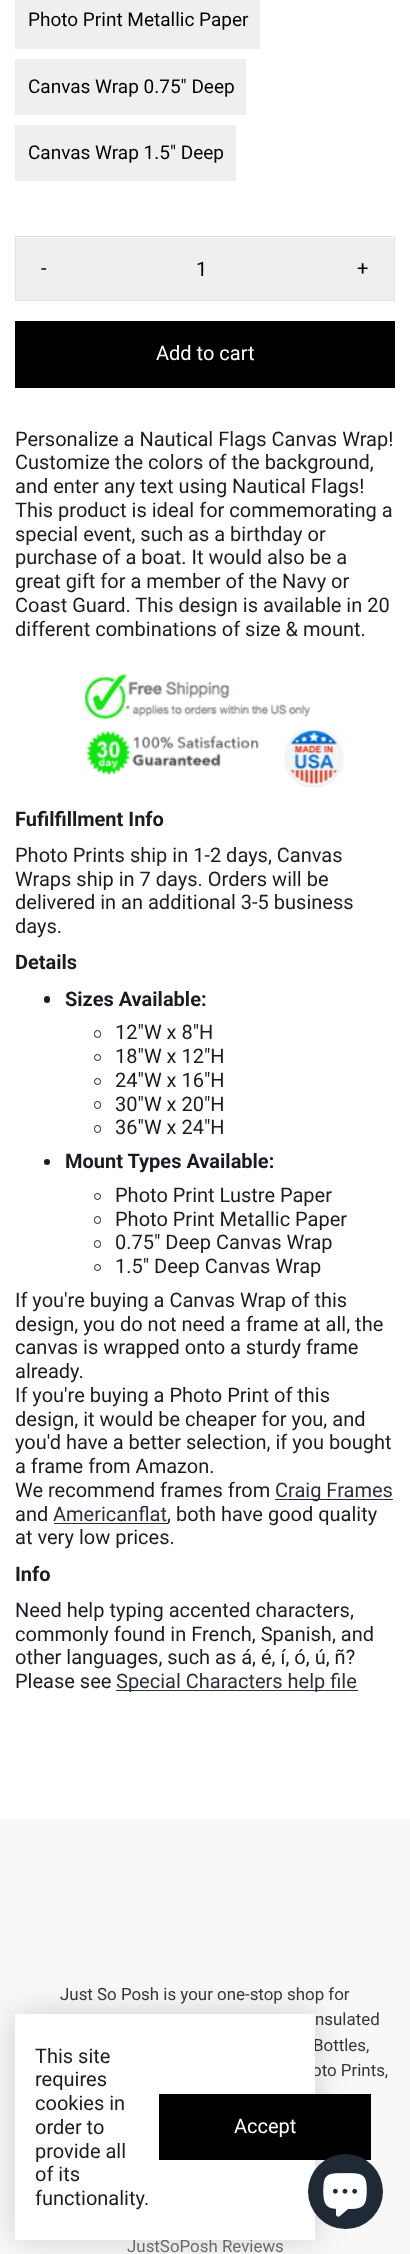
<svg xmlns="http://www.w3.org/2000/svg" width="410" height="2254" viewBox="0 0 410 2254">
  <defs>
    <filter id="blur1" x="-50%" y="-200%" width="200%" height="500%"><feGaussianBlur stdDeviation="15"/></filter>
  </defs>
  <rect width="100%" height="100%" fill="#ffffff"/>
  <rect x="15" y="0" width="245" height="49" fill="#efefef"/>
  <text x="28" y="26" font-family="Roboto" font-size="19" fill="#000000">Photo Print Metallic Paper</text>
  <rect x="15" y="59" width="231" height="56" fill="#efefef"/>
  <text x="28" y="93" font-family="Roboto" font-size="19" fill="#000000">Canvas Wrap 0.75" Deep</text>
  <rect x="15" y="125" width="221" height="56" fill="#efefef"/>
  <text x="28" y="159" font-family="Roboto" font-size="19" fill="#000000">Canvas Wrap 1.5" Deep</text>
  <rect x="15.5" y="236.5" width="379" height="64" fill="none" stroke="#e2e2e2"/>
  <rect x="16" y="238" width="378" height="62" fill="#efefef"/>
  <text x="41" y="275" font-family="Roboto" font-size="20" fill="#000000">-</text>
  <text x="196" y="276" font-family="Roboto" font-size="20" fill="#000000">1</text>
  <text x="357" y="275" font-family="Roboto" font-size="20" fill="#000000">+</text>
  <rect x="15" y="321" width="380" height="67" fill="#000000"/>
  <text x="156" y="360" font-family="Roboto" font-size="20" fill="#ffffff">Add to cart</text>
  <text x="15" y="446" font-family="Roboto" font-size="20" fill="#191d21">Personalize a Nautical Flags Canvas Wrap!</text>
  <text x="15" y="469" font-family="Roboto" font-size="20" fill="#191d21">Customize the colors of the background,</text>
  <text x="15" y="493" font-family="Roboto" font-size="20" fill="#191d21">and enter any text using Nautical Flags!</text>
  <text x="15" y="517" font-family="Roboto" font-size="20" fill="#191d21">This product is ideal for commemorating a</text>
  <text x="15" y="541" font-family="Roboto" font-size="20" fill="#191d21">special event, such as a birthday or</text>
  <text x="15" y="564" font-family="Roboto" font-size="20" fill="#191d21">purchase of a boat. It would also be a</text>
  <text x="15" y="588" font-family="Roboto" font-size="20" fill="#191d21">great gift for a member of the Navy or</text>
  <text x="15" y="612" font-family="Roboto" font-size="20" fill="#191d21">Coast Guard. This design is available in 20</text>
  <text x="15" y="636" font-family="Roboto" font-size="20" fill="#191d21">different combinations of size &amp; mount.</text>
  <image x="85" y="674" width="225" height="46" href="img1.png"/>
  <image x="86" y="730" width="173" height="46" href="img2.png"/>
  <image x="284" y="729" width="60" height="59" href="img3.png"/>
  <text x="15" y="826" font-family="Roboto" font-size="20" font-weight="bold" fill="#191d21">Fufilfillment Info</text>
  <text x="15" y="862" font-family="Roboto" font-size="20" fill="#191d21">Photo Prints ship in 1-2 days, Canvas</text>
  <text x="15" y="886" font-family="Roboto" font-size="20" fill="#191d21">Wraps ship in 7 days. Orders will be</text>
  <text x="15" y="909" font-family="Roboto" font-size="20" fill="#191d21">delivered in an additional 3-5 business</text>
  <text x="15" y="933" font-family="Roboto" font-size="20" fill="#191d21">days.</text>
  <text x="15" y="969" font-family="Roboto" font-size="20" font-weight="bold" fill="#191d21">Details</text>
  <rect x="44" y="996" width="6" height="7" rx="3" fill="#191d21"/>
  <text x="65" y="1006" font-family="Roboto" font-size="20" font-weight="bold" fill="#191d21">Sizes Available:</text>
  <rect x="94.5" y="1030.5" width="6" height="7" rx="3" fill="none" stroke="#191d21"/>
  <text x="115" y="1039" font-family="Roboto" font-size="20" fill="#191d21">12"W x 8"H</text>
  <circle cx="97.5" cy="1057.5" r="3" fill="none" stroke="#191d21"/>
  <text x="115" y="1063" font-family="Roboto" font-size="20" fill="#191d21">18"W x 12"H</text>
  <circle cx="97.5" cy="1081.5" r="3" fill="none" stroke="#191d21"/>
  <text x="115" y="1087" font-family="Roboto" font-size="20" fill="#191d21">24"W x 16"H</text>
  <rect x="94.5" y="1101.5" width="6" height="7" rx="3" fill="none" stroke="#191d21"/>
  <text x="115" y="1111" font-family="Roboto" font-size="20" fill="#191d21">30"W x 20"H</text>
  <rect x="94.5" y="1125.5" width="6" height="7" rx="3" fill="none" stroke="#191d21"/>
  <text x="115" y="1134" font-family="Roboto" font-size="20" fill="#191d21">36"W x 24"H</text>
  <circle cx="47" cy="1162" r="3" fill="#191d21"/>
  <text x="65" y="1168" font-family="Roboto" font-size="20" font-weight="bold" fill="#191d21">Mount Types Available:</text>
  <circle cx="97.5" cy="1196.5" r="3" fill="none" stroke="#191d21"/>
  <text x="115" y="1202" font-family="Roboto" font-size="20" fill="#191d21">Photo Print Lustre Paper</text>
  <rect x="94.5" y="1216.5" width="6" height="7" rx="3" fill="none" stroke="#191d21"/>
  <text x="115" y="1226" font-family="Roboto" font-size="20" fill="#191d21">Photo Print Metallic Paper</text>
  <rect x="94.5" y="1240.5" width="6" height="7" rx="3" fill="none" stroke="#191d21"/>
  <text x="115" y="1249" font-family="Roboto" font-size="20" fill="#191d21">0.75" Deep Canvas Wrap</text>
  <circle cx="97.5" cy="1267.5" r="3" fill="none" stroke="#191d21"/>
  <text x="115" y="1273" font-family="Roboto" font-size="20" fill="#191d21">1.5" Deep Canvas Wrap</text>
  <text x="15" y="1307" font-family="Roboto" font-size="20" fill="#191d21">If you're buying a Canvas Wrap of this</text>
  <text x="15" y="1331" font-family="Roboto" font-size="20" fill="#191d21">design, you do not need a frame at all, the</text>
  <text x="15" y="1354" font-family="Roboto" font-size="20" fill="#191d21">canvas is wrapped onto a sturdy frame</text>
  <text x="15" y="1378" font-family="Roboto" font-size="20" fill="#191d21">already.</text>
  <text x="15" y="1402" font-family="Roboto" font-size="20" fill="#191d21">If you're buying a Photo Print of this</text>
  <text x="15" y="1426" font-family="Roboto" font-size="20" fill="#191d21">design, it would be cheaper for you, and</text>
  <text x="15" y="1449" font-family="Roboto" font-size="20" fill="#191d21">you'd have a better selection, if you bought</text>
  <text x="15" y="1473" font-family="Roboto" font-size="20" fill="#191d21">a frame from Amazon.</text>
  <text x="15" y="1497" font-family="Roboto" font-size="20" fill="#191d21">We recommend frames from</text>
  <rect x="275" y="1499" width="118" height="1" fill="#2b2f3d"/>
  <text x="275" y="1497" font-family="Roboto" font-size="20" fill="#2b2f3d">Craig Frames</text>
  <text x="15" y="1521" font-family="Roboto" font-size="20" fill="#191d21">and</text>
  <text x="53" y="1521" font-family="Roboto" font-size="20" fill="#2b2f3d">Americanflat</text>
  <rect x="54" y="1523" width="114" height="1" fill="#2b2f3d"/>
  <text x="167" y="1521" font-family="Roboto" font-size="20" fill="#191d21">, both have good quality</text>
  <text x="15" y="1544" font-family="Roboto" font-size="20" fill="#191d21">at very low prices.</text>
  <text x="15" y="1581" font-family="Roboto" font-size="20" font-weight="bold" fill="#191d21">Info</text>
  <text x="15" y="1617" font-family="Roboto" font-size="20" fill="#191d21">Need help typing accented characters,</text>
  <text x="15" y="1641" font-family="Roboto" font-size="20" fill="#191d21">commonly found in French, Spanish, and</text>
  <text x="15" y="1664" font-family="Roboto" font-size="20" fill="#191d21">other languages, such as á, é, í, ó, ú, ñ?</text>
  <text x="15" y="1688" font-family="Roboto" font-size="20" fill="#191d21">Please see</text>
  <rect x="116" y="1690" width="242" height="1" fill="#2b2f3d"/>
  <text x="116" y="1688" font-family="Roboto" font-size="20" fill="#2b2f3d">Special Characters help file</text>
  <rect x="0" y="1819" width="410" height="435" fill="#f8f8f8"/>
  <text x="60" y="2000" font-family="Roboto" font-size="16.9" fill="#373737">Just So Posh is your one-stop shop for</text>
  <text x="315" y="2025" font-family="Roboto" font-size="16.9" fill="#373737">nsulated</text>
  <text x="313" y="2051" font-family="Roboto" font-size="16.9" fill="#373737">Bottles,</text>
  <text x="312" y="2076" font-family="Roboto" font-size="16.9" fill="#373737">oto Prints,</text>
  <text x="127" y="2252" font-family="Roboto" font-size="16.9" fill="#717171">JustSoPosh Reviews</text>
  <rect x="15" y="2014" width="300" height="226" fill="#000000" fill-opacity="0.16" filter="url(#blur1)"/>
  <rect x="15" y="2014" width="300" height="226" fill="#ffffff"/>
  <text x="35" y="2063" font-family="Roboto" font-size="20" fill="#191d21">This site</text>
  <text x="35" y="2086" font-family="Roboto" font-size="20" fill="#191d21">requires</text>
  <text x="35" y="2110" font-family="Roboto" font-size="20" fill="#191d21">cookies in</text>
  <text x="35" y="2134" font-family="Roboto" font-size="20" fill="#191d21">order to</text>
  <text x="35" y="2158" font-family="Roboto" font-size="20" fill="#191d21">provide all</text>
  <text x="35" y="2181" font-family="Roboto" font-size="20" fill="#191d21">of its</text>
  <text x="35" y="2205" font-family="Roboto" font-size="20" fill="#191d21">functionality.</text>
  <rect x="159" y="2094" width="212" height="66" fill="#000000"/>
  <text x="234" y="2133" font-family="Roboto" font-size="20" fill="#ffffff">Accept</text>
  <circle cx="345.5" cy="2191.5" r="37.5" fill="#202a36"/>
  <image x="323" y="2173" width="44" height="44" href="img4.png"/>
</svg>
